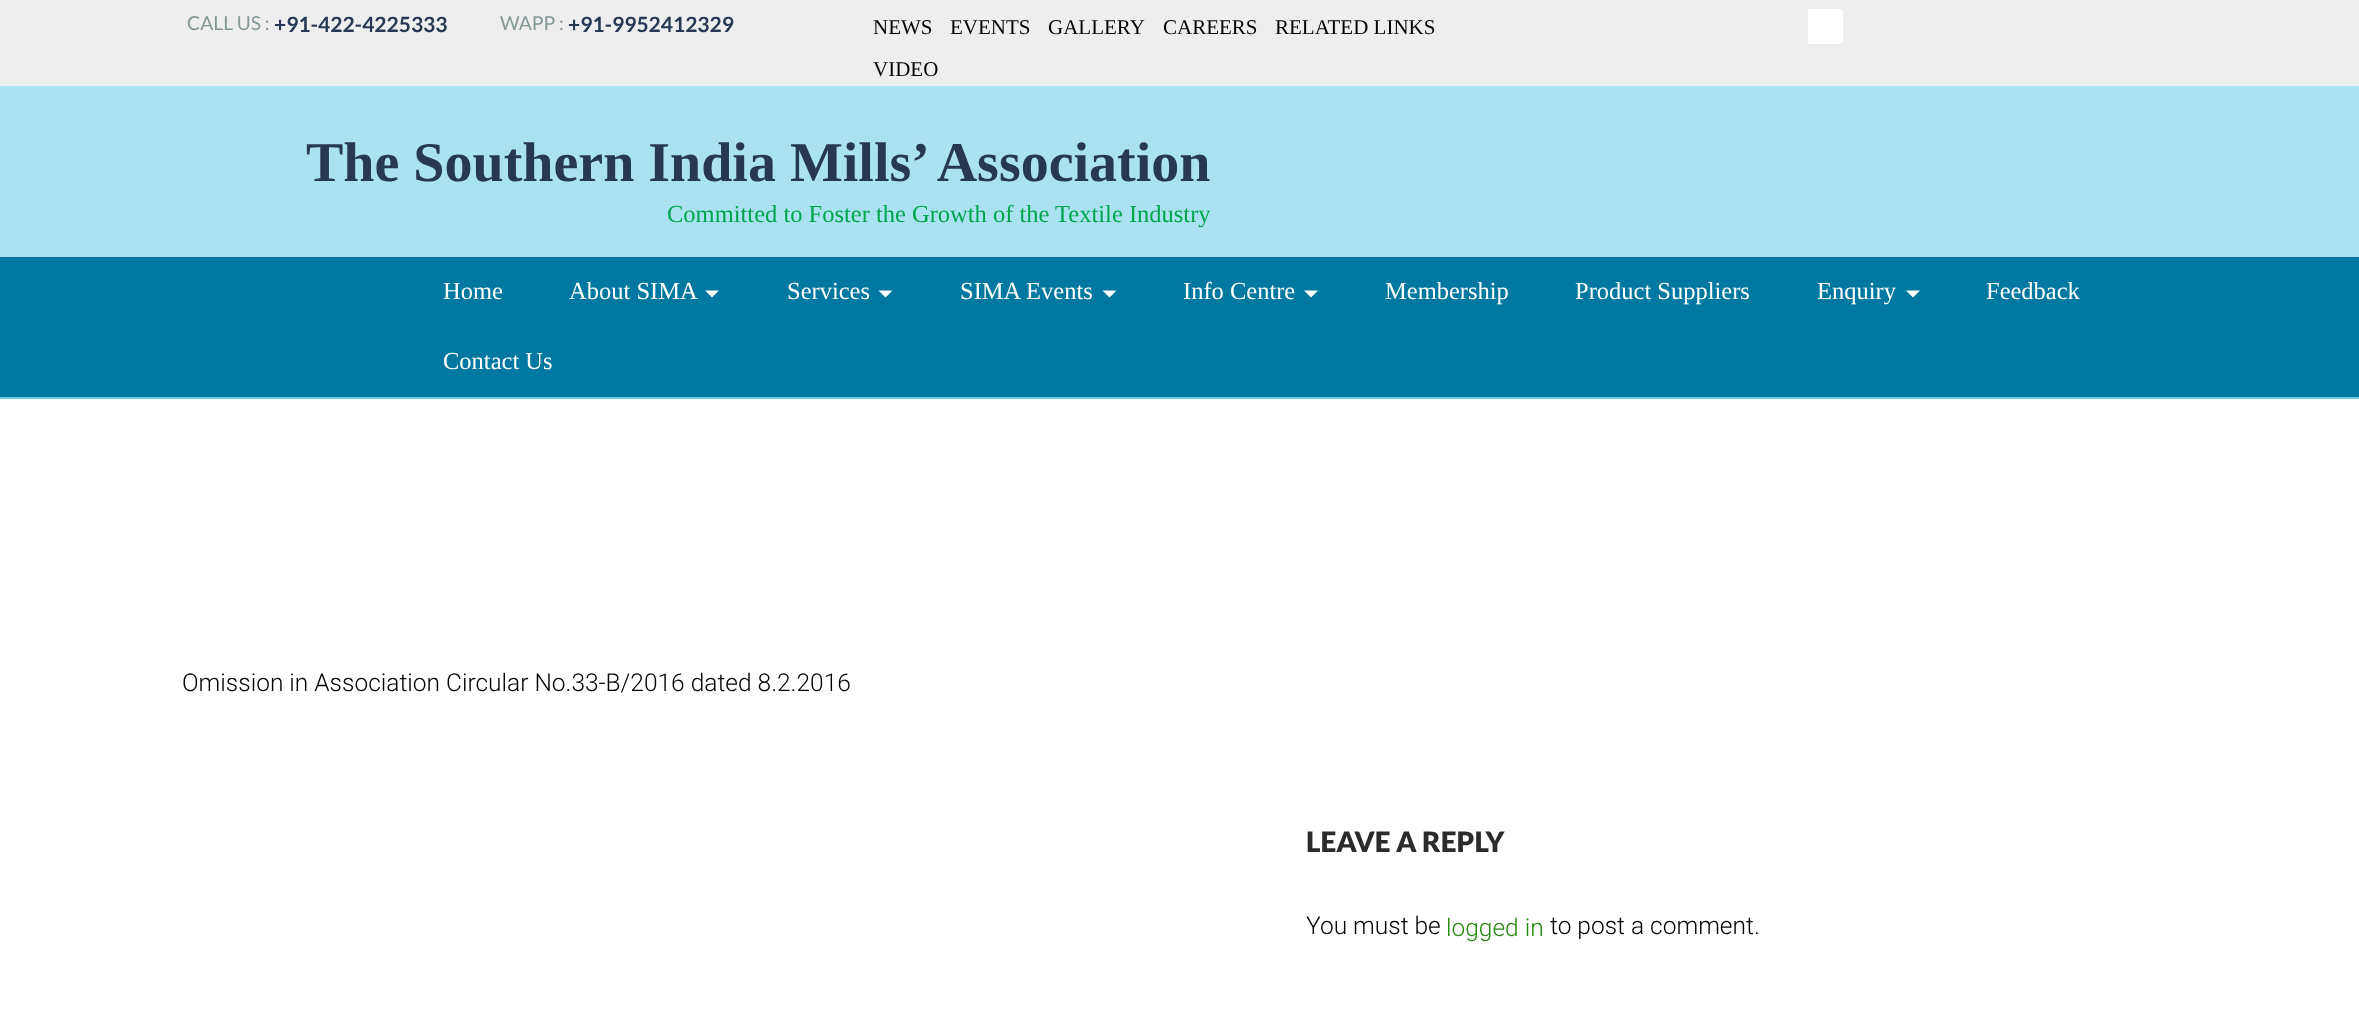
<svg xmlns="http://www.w3.org/2000/svg" width="2359" height="1028" viewBox="0 0 2359 1028">
  <rect width="100%" height="100%" fill="#ffffff"/>
  <rect x="0" y="0" width="2359" height="86" fill="#eeeeee"/>
  <text x="187" y="30" font-family="Lato" font-size="19.25" fill="#839896">CALL US :</text>
  <text x="274" y="32" font-family="Lato" font-size="21" font-weight="bold" fill="#273952">+91-422-4225333</text>
  <text x="500" y="30" font-family="Lato" font-size="19.25" fill="#839896">WAPP :</text>
  <text x="568" y="32" font-family="Lato" font-size="21" font-weight="bold" fill="#273952">+91-9952412329</text>
  <text x="873" y="34" font-family="Liberation Serif" font-size="21" fill="#000000">NEWS</text>
  <text x="950" y="34" font-family="Liberation Serif" font-size="21" fill="#000000">EVENTS</text>
  <text x="1048" y="34" font-family="Liberation Serif" font-size="21" fill="#000000">GALLERY</text>
  <text x="1163" y="34" font-family="Liberation Serif" font-size="21" fill="#000000">CAREERS</text>
  <text x="1275" y="34" font-family="Liberation Serif" font-size="21" fill="#000000">RELATED LINKS</text>
  <text x="873" y="76" font-family="Liberation Serif" font-size="21" fill="#000000">VIDEO</text>
  <path d="M1808 9H1839C1841 9 1843 11 1843 13V40C1843 42 1841 44 1839 44H1808Z" fill="#ffffff"/>
  <rect x="0" y="86" width="2359" height="171" fill="#aae2f1"/>
  <text x="306" y="181" font-family="Liberation Serif" font-size="56" font-weight="bold" fill="#273952">The Southern India Mills’ Association</text>
  <text x="667" y="222" font-family="Liberation Serif" font-size="24.5" fill="#00a44d">Committed to Foster the Growth of the Textile Industry</text>
  <rect x="0" y="257" width="2359" height="140" fill="#00789f"/>
  <rect x="0" y="397" width="2359" height="2" fill="#6ecee8"/>
  <text x="443" y="299" font-family="Liberation Serif" font-size="24.5" fill="#ffffff">Home</text>
  <text x="569" y="299" font-family="Liberation Serif" font-size="24.5" fill="#ffffff">About SIMA</text>
  <path d="M705 290.5H719L712 297.5Z" fill="#ffffff"/>
  <text x="787" y="299" font-family="Liberation Serif" font-size="24.5" fill="#ffffff">Services</text>
  <path d="M878.5 290.5H892.5L885.5 297.5Z" fill="#ffffff"/>
  <text x="960" y="299" font-family="Liberation Serif" font-size="24.5" fill="#ffffff">SIMA Events</text>
  <path d="M1102.5 290.5H1116.5L1109.5 297.5Z" fill="#ffffff"/>
  <text x="1183" y="299" font-family="Liberation Serif" font-size="24.5" fill="#ffffff">Info Centre</text>
  <path d="M1304 290.5H1318L1311 297.5Z" fill="#ffffff"/>
  <text x="1385" y="299" font-family="Liberation Serif" font-size="24.5" fill="#ffffff">Membership</text>
  <text x="1575" y="299" font-family="Liberation Serif" font-size="24.5" fill="#ffffff">Product Suppliers</text>
  <text x="1817" y="299" font-family="Liberation Serif" font-size="24.5" fill="#ffffff">Enquiry</text>
  <path d="M1906 290.5H1920L1913 297.5Z" fill="#ffffff"/>
  <text x="1986" y="299" font-family="Liberation Serif" font-size="24.5" fill="#ffffff">Feedback</text>
  <text x="443" y="369" font-family="Liberation Serif" font-size="24.5" fill="#ffffff">Contact Us</text>
  <text x="182" y="691" font-family="Roboto" font-size="24.5" font-weight="300" fill="#000000">Omission in Association Circular No.33-B/2016 dated 8.2.2016</text>
  <text x="1306" y="852" font-family="Lato" font-size="28" font-weight="900" fill="#2b2b2b">LEAVE A REPLY</text>
  <text x="1306" y="934" font-family="Roboto" font-size="24.5" font-weight="300" fill="#000000">You must be</text>
  <text x="1446" y="936" font-family="Roboto" font-size="24.5" font-weight="300" fill="#24890d">logged in</text>
  <text x="1550" y="934" font-family="Roboto" font-size="24.5" font-weight="300" fill="#000000">to post a comment.</text>
</svg>
